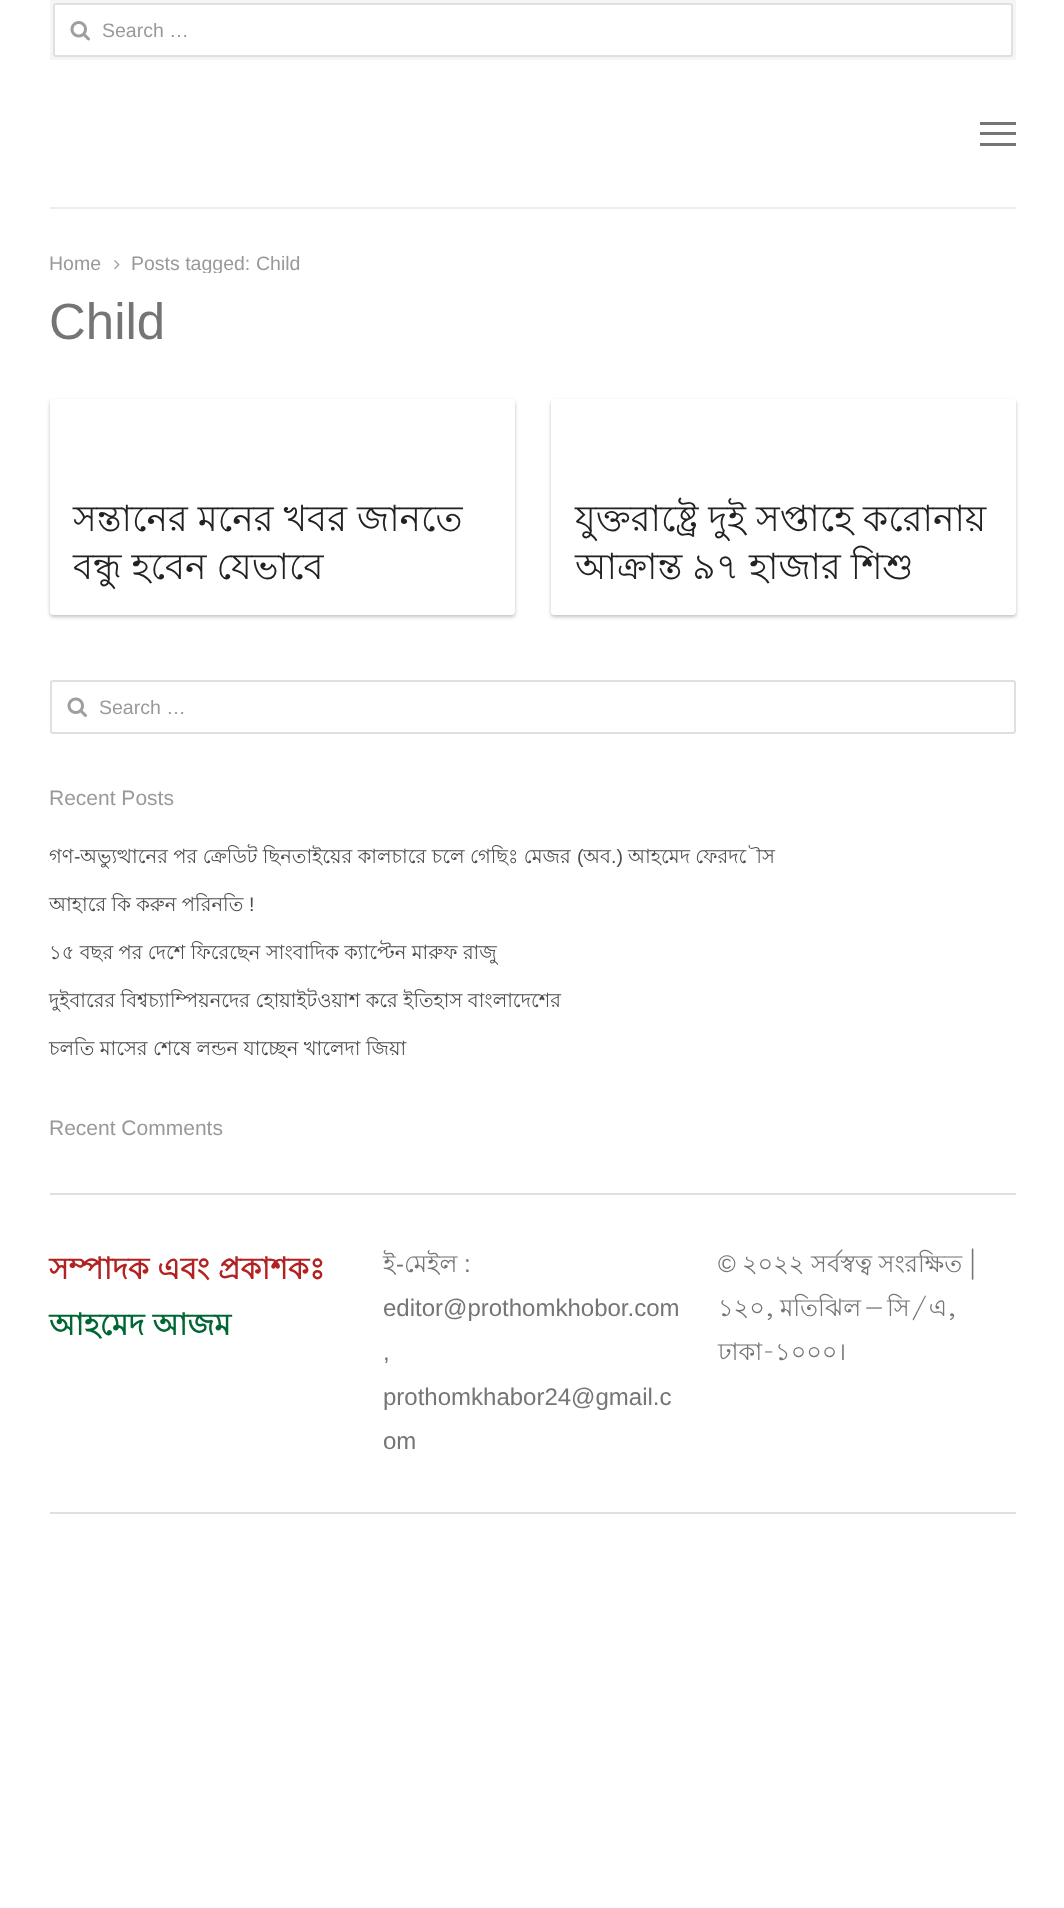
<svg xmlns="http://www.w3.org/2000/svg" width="1064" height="1908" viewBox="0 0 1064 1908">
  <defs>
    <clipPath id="clip1"><rect x="50" y="243" width="966" height="30"/></clipPath>
    <clipPath id="clip2"><path d="M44 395H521V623H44ZM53 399H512C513.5 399 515 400.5 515 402V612C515 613.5 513.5 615 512 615H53C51.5 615 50 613.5 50 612V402C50 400.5 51.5 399 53 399Z" clip-rule="evenodd"/></clipPath>
    <filter id="blur1" x="-50%" y="-200%" width="200%" height="500%"><feGaussianBlur stdDeviation="1.5"/></filter>
    <clipPath id="clip3"><path d="M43 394H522V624H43ZM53 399H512C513.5 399 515 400.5 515 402V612C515 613.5 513.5 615 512 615H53C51.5 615 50 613.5 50 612V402C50 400.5 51.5 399 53 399Z" clip-rule="evenodd"/></clipPath>
    <filter id="blur2" x="-50%" y="-200%" width="200%" height="500%"><feGaussianBlur stdDeviation="2"/></filter>
    <clipPath id="clip4"><path d="M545 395H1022V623H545ZM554 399H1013C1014.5 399 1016 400.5 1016 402V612C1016 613.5 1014.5 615 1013 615H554C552.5 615 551 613.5 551 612V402C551 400.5 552.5 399 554 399Z" clip-rule="evenodd"/></clipPath>
    <clipPath id="clip5"><path d="M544 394H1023V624H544ZM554 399H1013C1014.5 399 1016 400.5 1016 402V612C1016 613.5 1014.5 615 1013 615H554C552.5 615 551 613.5 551 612V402C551 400.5 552.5 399 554 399Z" clip-rule="evenodd"/></clipPath>
  </defs>
  <rect width="100%" height="100%" fill="#ffffff"/>
  <rect x="50" y="0" width="966" height="60" fill="#f5f5f5"/>
  <rect x="53" y="3" width="960" height="54" rx="3" fill="#ffffff"/>
  <rect x="54" y="4" width="958" height="52" rx="2" fill="none" stroke="#000000" stroke-opacity="0.12" stroke-width="2"/>
  <image x="70" y="21" width="20" height="20" href="img1.png"/>
  <text x="102" y="37" font-family="Liberation Sans" font-size="19.5" fill="#999999">Search …</text>
  <path d="M50 207V209H1016V62V207Z" fill="#ededed"/>
  <rect x="980" y="122" width="36" height="3" fill="#757575"/>
  <rect x="980" y="132" width="36" height="3" fill="#757575"/>
  <rect x="980" y="143" width="36" height="3" fill="#757575"/>
  <text x="49" y="270" font-family="Liberation Sans" font-size="19.5" fill="#999999">Home</text>
  <image x="114" y="260" width="6" height="10" href="img2.png"/>
  <g clip-path="url(#clip1)">
    <text x="131" y="270" font-family="Liberation Sans" font-size="19.5" fill="#999999">Posts tagged:</text>
  </g>
  <text x="256" y="270" font-family="Liberation Sans" font-size="19.5" fill="#999999">Child</text>
  <text x="49" y="339" font-family="Liberation Sans" font-size="51" fill="#757575">Child</text>
  <g clip-path="url(#clip2)">
    <rect x="50" y="401" width="465" height="216" rx="3" fill="#000000" fill-opacity="0.12" filter="url(#blur1)"/>
  </g>
  <g clip-path="url(#clip3)">
    <rect x="50" y="401" width="465" height="216" rx="3" fill="#000000" fill-opacity="0.12" filter="url(#blur2)"/>
  </g>
  <text x="73" y="531" font-family="Lohit Bengali" font-size="36" fill="#222222">সন্তানের মনের খবর জানতে</text>
  <text x="73" y="579" font-family="Lohit Bengali" font-size="36" fill="#222222">বন্ধু হবেন যেভাবে</text>
  <g clip-path="url(#clip4)">
    <rect x="551" y="401" width="465" height="216" rx="3" fill="#000000" fill-opacity="0.12" filter="url(#blur1)"/>
  </g>
  <g clip-path="url(#clip5)">
    <rect x="551" y="401" width="465" height="216" rx="3" fill="#000000" fill-opacity="0.12" filter="url(#blur2)"/>
  </g>
  <text x="575" y="531" font-family="Lohit Bengali" font-size="36" fill="#222222">যুক্তরাষ্ট্রে দুই সপ্তাহে করোনায়</text>
  <text x="575" y="579" font-family="Lohit Bengali" font-size="36" fill="#222222">আক্রান্ত ৯৭ হাজার শিশু</text>
  <rect x="51" y="681" width="964" height="52" rx="2" fill="none" stroke="#e0e0e0" stroke-width="2"/>
  <image x="67" y="697" width="20" height="20" href="img3.png"/>
  <text x="99" y="714" font-family="Liberation Sans" font-size="19.5" fill="#999999">Search …</text>
  <text x="49" y="805" font-family="Liberation Sans" font-size="21" fill="#999999">Recent Posts</text>
  <text x="49" y="863" font-family="Lohit Bengali" font-size="19.5" fill="#4d4d4d">গণ</text>
  <text x="74" y="863" font-family="Liberation Sans" font-size="19.5" fill="#4d4d4d">-</text>
  <text x="80" y="863" font-family="Lohit Bengali" font-size="19.5" fill="#4d4d4d">অভ্যুত্থানের পর ক্রেডিট ছিনতাইয়ের কালচারে চলে গেছিঃ মেজর</text>
  <text x="577" y="863" font-family="Liberation Sans" font-size="19.5" fill="#4d4d4d">(</text>
  <text x="583" y="863" font-family="Lohit Bengali" font-size="19.5" fill="#4d4d4d">অব</text>
  <text x="611" y="863" font-family="Liberation Sans" font-size="19.5" fill="#4d4d4d">.)</text>
  <text x="628" y="863" font-family="Lohit Bengali" font-size="19.5" fill="#4d4d4d">আহমেদ ফেরদৌস</text>
  <text x="49" y="911" font-family="Lohit Bengali" font-size="19.5" fill="#4d4d4d">আহারে কি করুন পরিনতি</text>
  <text x="249" y="911" font-family="Liberation Sans" font-size="19.5" fill="#4d4d4d">!</text>
  <text x="49" y="959" font-family="Lohit Bengali" font-size="19.5" fill="#4d4d4d">১৫ বছর পর দেশে ফিরেছেন সাংবাদিক ক্যাপ্টেন মারুফ রাজু</text>
  <text x="49" y="1007" font-family="Lohit Bengali" font-size="19.5" fill="#4d4d4d">দুইবারের বিশ্বচ্যাম্পিয়নদের হোয়াইটওয়াশ করে ইতিহাস বাংলাদেশের</text>
  <text x="49" y="1055" font-family="Lohit Bengali" font-size="19.5" fill="#4d4d4d">চলতি মাসের শেষে লন্ডন যাচ্ছেন খালেদা জিয়া</text>
  <text x="49" y="1135" font-family="Liberation Sans" font-size="21" fill="#999999">Recent Comments</text>
  <rect x="50" y="1193" width="966" height="2" fill="#e0e0e0"/>
  <text x="49" y="1279" font-family="Lohit Bengali" font-size="30" font-weight="bold" fill="#b22222">সম্পাদক এবং প্রকাশকঃ</text>
  <text x="49" y="1335" font-family="Lohit Bengali" font-size="30" font-weight="bold" fill="#006633">আহমেদ আজম</text>
  <text x="383" y="1272" font-family="Lohit Bengali" font-size="24" fill="#757575">ই</text>
  <text x="396" y="1272" font-family="Liberation Sans" font-size="24" fill="#757575">-</text>
  <text x="404" y="1272" font-family="Lohit Bengali" font-size="24" fill="#757575">মেইল</text>
  <text x="464" y="1272" font-family="Liberation Sans" font-size="24" fill="#757575">:</text>
  <text x="383" y="1316" font-family="Liberation Sans" font-size="24" fill="#757575">editor@prothomkhobor.com</text>
  <text x="383" y="1360" font-family="Liberation Sans" font-size="24" fill="#757575">,</text>
  <text x="383" y="1405" font-family="Liberation Sans" font-size="24" fill="#757575">prothomkhabor24@gmail.c</text>
  <text x="383" y="1449" font-family="Liberation Sans" font-size="24" fill="#757575">om</text>
  <text x="718" y="1272" font-family="Liberation Sans" font-size="24" fill="#757575">©</text>
  <text x="742" y="1272" font-family="Lohit Bengali" font-size="24" fill="#757575">২০২২ সর্বস্বত্ব সংরক্ষিত |</text>
  <text x="718" y="1316" word-spacing="-1.5" font-family="Lohit Bengali" font-size="24" fill="#757575">১২০, মতিঝিল – সি/এ,</text>
  <text x="718" y="1360" font-family="Lohit Bengali" font-size="24" fill="#757575">ঢাকা-১০০০।</text>
  <rect x="50" y="1512" width="966" height="2" fill="#e0e0e0"/>
</svg>
